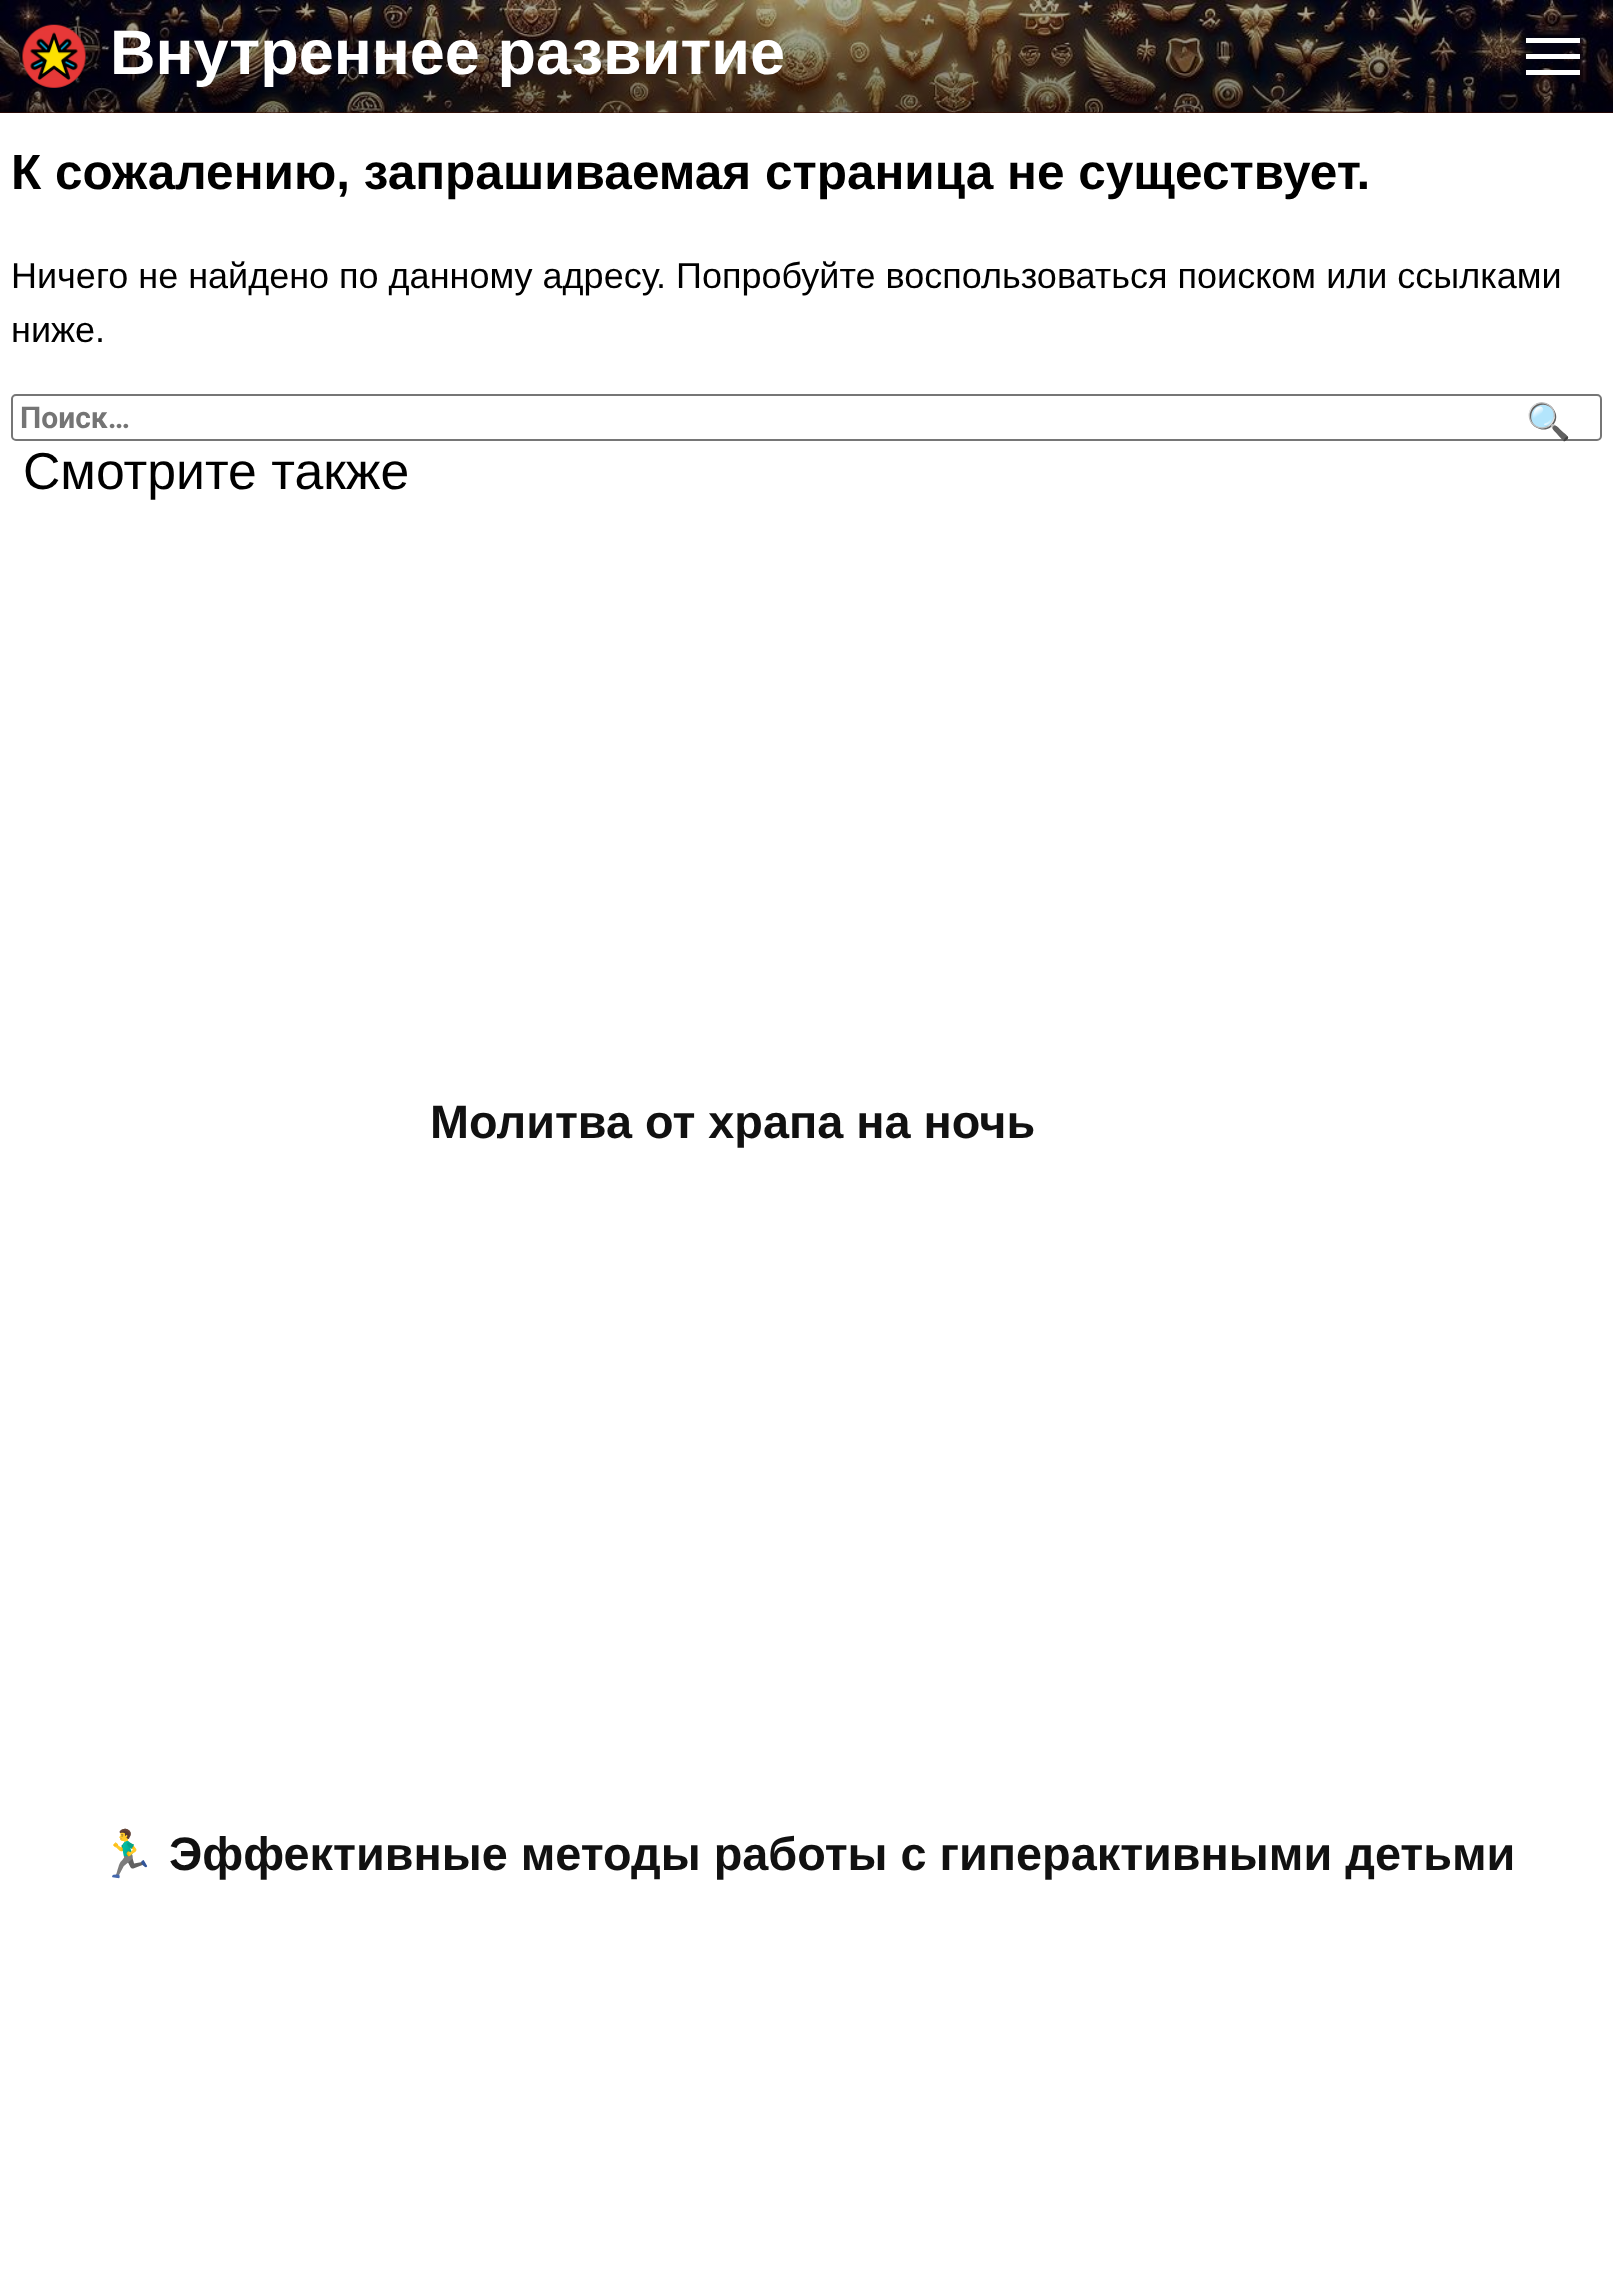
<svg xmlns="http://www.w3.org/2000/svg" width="1613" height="2286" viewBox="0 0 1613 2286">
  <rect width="100%" height="100%" fill="#ffffff"/>
  <rect x="0" y="112" width="1613" height="1" fill="#350c03"/>
  <image x="0" y="0" width="1613" height="113" href="img1.png"/>
  <image x="22" y="24" width="64" height="64" href="img2.png"/>
  <text x="110" y="74" font-family="Liberation Sans" font-size="63" font-weight="bold" fill="#ffffff">Внутреннее развитие</text>
  <rect x="1526" y="38" width="54" height="5" fill="#ffffff"/>
  <rect x="1526" y="54" width="54" height="5" fill="#ffffff"/>
  <rect x="1526" y="70" width="54" height="5" fill="#ffffff"/>
  <text x="11" y="189" font-family="Liberation Sans" font-size="49.5" font-weight="bold" fill="#000000">К сожалению, запрашиваемая страница не существует.</text>
  <text x="11" y="288" font-family="Liberation Sans" font-size="36" fill="#000000">Ничего не найдено по данному адресу. Попробуйте воспользоваться поиском или ссылками</text>
  <text x="11" y="342" font-family="Liberation Sans" font-size="36" fill="#000000">ниже.</text>
  <rect x="12" y="395" width="1589" height="45" rx="4" fill="none" stroke="#767676" stroke-width="2"/>
  <text x="20" y="428" font-family="Roboto" font-size="30" font-weight="bold" fill="#757575">Поиск…</text>
  <text x="1526" y="434" font-family="Noto Color Emoji" font-size="36" fill="#000000">🔍</text>
  <text x="23" y="489" font-family="Liberation Sans" font-size="51.75" fill="#000000">Смотрите также</text>
  <text x="430" y="1138" font-family="Liberation Sans" font-size="46.8" font-weight="bold" fill="#111111">Молитва от храпа на ночь</text>
  <text x="98" y="1870" font-family="Noto Color Emoji" font-size="46.8" font-weight="bold" fill="#111111">🏃‍♂️</text>
  <text x="169" y="1870" font-family="Liberation Sans" font-size="46.8" font-weight="bold" fill="#111111">Эффективные методы работы с гиперактивными детьми</text>
</svg>
